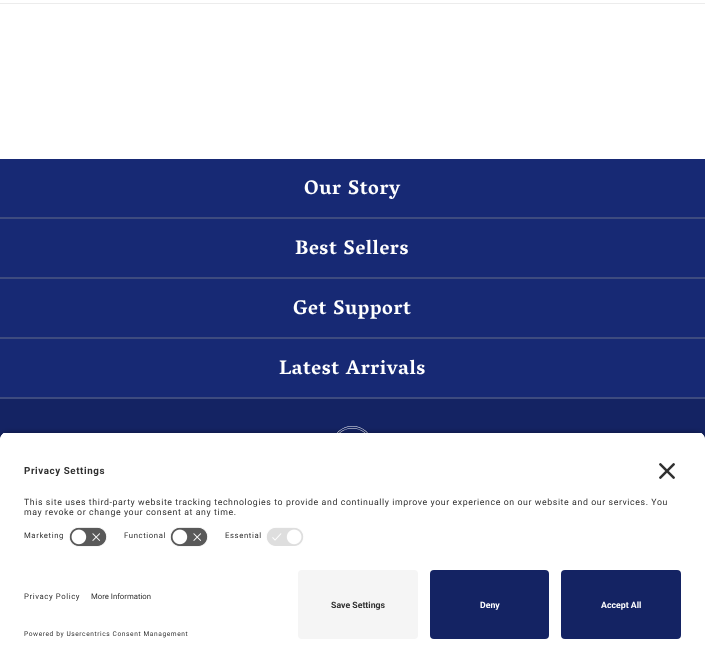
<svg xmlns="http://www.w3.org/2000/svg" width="705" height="663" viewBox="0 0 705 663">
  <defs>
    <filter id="blur1" x="-50%" y="-200%" width="200%" height="500%"><feGaussianBlur stdDeviation="3.5"/></filter>
    <clipPath id="clip1"><path d="M8 432H697C701.5 432 705 435.5 705 440V562H0V440C0 435.5 3.5 432 8 432Z"/></clipPath>
  </defs>
  <rect width="100%" height="100%" fill="#ffffff"/>
  <rect x="0" y="3" width="705" height="1" fill="#ececec"/>
  <rect x="0" y="159" width="705" height="238" fill="#172974"/>
  <rect x="0" y="217" width="705" height="2" fill="#3e4b7f"/>
  <text x="304" y="194" font-family="Vesper Libre" font-size="20" font-weight="bold" letter-spacing="0.6" fill="#ffffff">Our Story</text>
  <rect x="0" y="277" width="705" height="2" fill="#3e4b7f"/>
  <text x="295" y="254" font-family="Vesper Libre" font-size="20" font-weight="bold" letter-spacing="0.6" fill="#ffffff">Best Sellers</text>
  <rect x="0" y="337" width="705" height="2" fill="#3e4b7f"/>
  <text x="293" y="314" font-family="Vesper Libre" font-size="20" font-weight="bold" letter-spacing="0.6" fill="#ffffff">Get Support</text>
  <rect x="0" y="397" width="705" height="2" fill="#3e4b7f"/>
  <text x="279" y="374" font-family="Vesper Libre" font-size="20" font-weight="bold" letter-spacing="0.6" fill="#ffffff">Latest Arrivals</text>
  <rect x="0" y="399" width="705" height="41" fill="#142363"/>
  <image x="337" y="426" width="31" height="7" href="img1.png"/>
  <rect x="0" y="435" width="705" height="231" rx="8" fill="#000000" fill-opacity="0.8" filter="url(#blur1)"/>
  <g clip-path="url(#clip1)">
    <rect x="0" y="433" width="705" height="129" fill="#ffffff"/>
    <rect x="0" y="433" width="705" height="89" fill="#ffffff"/>
  </g>
  <text x="24" y="474" font-family="Roboto" font-size="9.75" font-weight="bold" letter-spacing="0.6" fill="#303030">Privacy Settings</text>
  <image x="659" y="463" width="16" height="16" href="img2.png"/>
  <text x="24" y="505" font-family="Roboto" font-size="8.75" letter-spacing="0.6" fill="#303030">This site uses third-party website tracking technologies to provide and continually improve your experience on our website and our services. You</text>
  <text x="24" y="515" font-family="Roboto" font-size="8.75" letter-spacing="0.6" fill="#303030">may revoke or change your consent at any time.</text>
  <text x="24" y="538" font-family="Roboto" font-size="7.75" letter-spacing="0.6" fill="#303030">Marketing</text>
  <image x="69" y="527" width="38" height="20" href="img3.png"/>
  <text x="124" y="538" font-family="Roboto" font-size="7.75" letter-spacing="0.6" fill="#303030">Functional</text>
  <image x="170" y="527" width="38" height="20" href="img3.png"/>
  <text x="225" y="538" font-family="Roboto" font-size="7.75" letter-spacing="0.6" fill="#303030">Essential</text>
  <image x="266" y="527" width="38" height="19" href="img4.png"/>
  <rect x="0" y="562" width="705" height="101" fill="#ffffff"/>
  <text x="24" y="599" font-family="Roboto" font-size="7.75" letter-spacing="0.6" fill="#303030">Privacy Policy</text>
  <text x="91" y="599" font-family="Roboto" font-size="7.75" fill="#303030">More Information</text>
  <text x="24" y="636" font-family="Roboto" font-size="6.6" letter-spacing="0.6" fill="#303030">Powered by Usercentrics Consent Management</text>
  <rect x="298" y="570" width="120" height="69" rx="4" fill="#f5f5f5"/>
  <text x="331" y="608" font-family="Roboto" font-size="8.75" font-weight="bold" fill="#303030">Save Settings</text>
  <rect x="430" y="570" width="119" height="69" rx="4" fill="#142363"/>
  <text x="480" y="608" font-family="Roboto" font-size="8.75" font-weight="bold" fill="#ffffff">Deny</text>
  <rect x="561" y="570" width="120" height="69" rx="4" fill="#142363"/>
  <text x="601" y="608" font-family="Roboto" font-size="8.75" font-weight="bold" fill="#ffffff">Accept All</text>
</svg>
